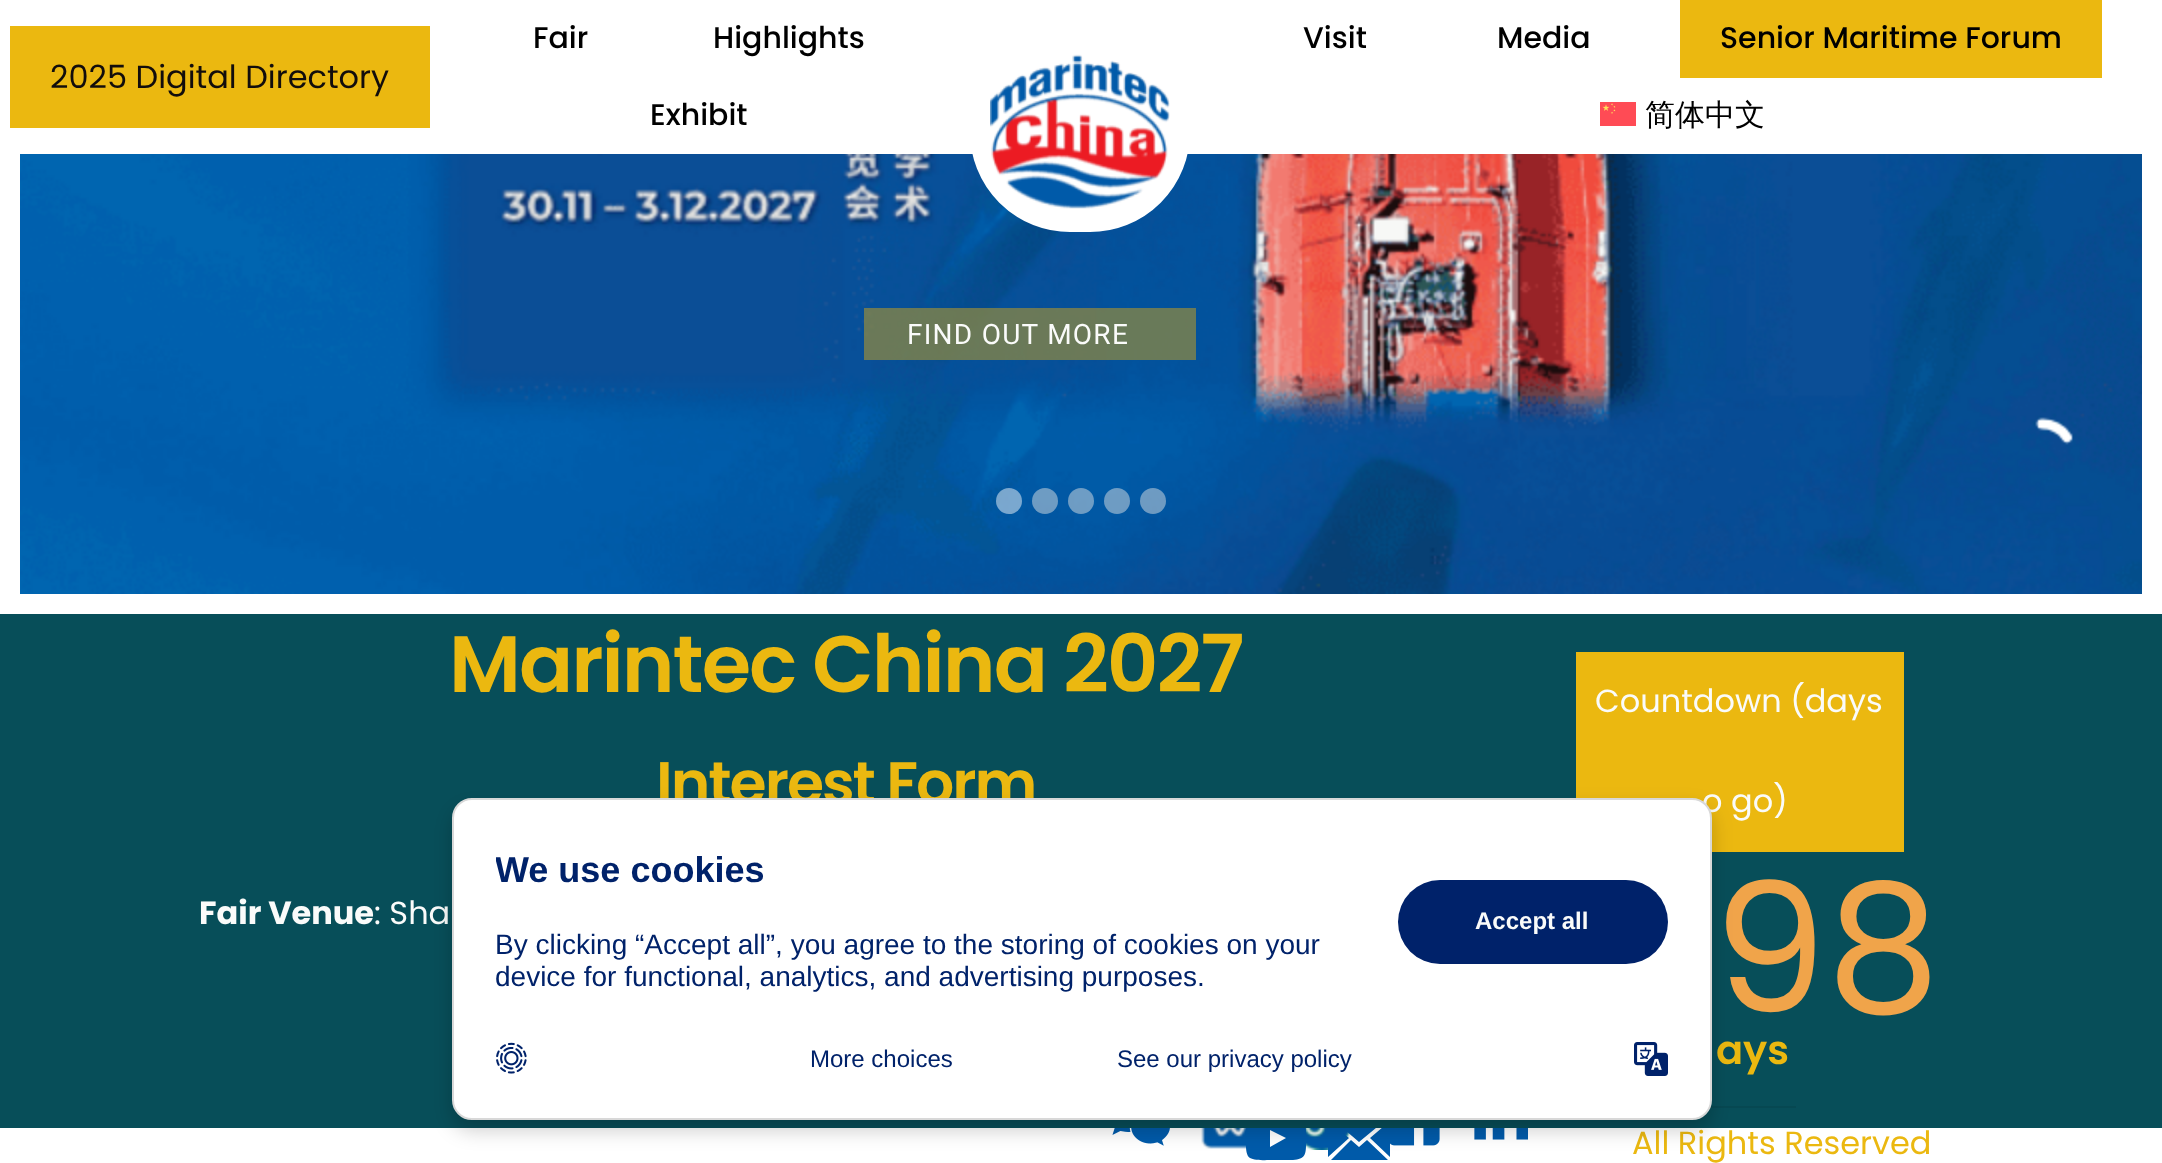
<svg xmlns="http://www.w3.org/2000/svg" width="2162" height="1163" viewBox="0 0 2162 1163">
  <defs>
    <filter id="blur1" x="-50%" y="-200%" width="200%" height="500%"><feGaussianBlur stdDeviation="10"/></filter>
    <clipPath id="clip1"><rect x="496" y="842" width="1172" height="158"/></clipPath>
  </defs>
  <rect width="100%" height="100%" fill="#ffffff"/>
  <rect x="10" y="26" width="420" height="102" fill="#ebb810"/>
  <text x="50" y="88" font-family="Poppins" font-size="32" fill="#120d0c">2025 Digital Directory</text>
  <text x="533" y="48" font-family="Poppins" font-size="30" font-weight="500" fill="#000000">Fair</text>
  <text x="713" y="48" font-family="Poppins" font-size="30" font-weight="500" fill="#000000">Highlights</text>
  <text x="650" y="125" font-family="Poppins" font-size="30" font-weight="500" fill="#000000">Exhibit</text>
  <image x="20" y="154" width="2122" height="440" href="img3.png"/>
  <rect x="980" y="42" width="200" height="180" rx="90" fill="#ffffff" stroke="#ffffff" stroke-width="20"/>
  <image x="990" y="54" width="180" height="155" href="img1.png"/>
  <text x="1303" y="48" font-family="Poppins" font-size="30" font-weight="500" fill="#000000">Visit</text>
  <text x="1497" y="48" font-family="Poppins" font-size="30" font-weight="500" fill="#000000">Media</text>
  <rect x="1680" y="0" width="422" height="78" fill="#ebb810"/>
  <text x="1720" y="48" font-family="Poppins" font-size="30" font-weight="500" fill="#000000">Senior Maritime Forum</text>
  <image x="1600" y="102" width="36" height="24" href="img2.png"/>
  <text x="1645" y="125" font-family="WenQuanYi Zen Hei" font-size="30" font-weight="500" fill="#000000">简体中文</text>
  <rect x="864" y="308" width="332" height="52" fill="#908941" fill-opacity="0.73"/>
  <text x="907" y="344" font-family="Roboto" font-size="28" letter-spacing="1.25" fill="#fafbfa">FIND OUT MORE</text>
  <image x="2035" y="417" width="38" height="28" href="img4.png"/>
  <circle cx="1009" cy="501" r="13" fill="#ffffff" fill-opacity="0.48"/>
  <circle cx="1045" cy="501" r="13" fill="#e5e5e5" fill-opacity="0.48"/>
  <circle cx="1081" cy="501" r="13" fill="#e5e5e5" fill-opacity="0.48"/>
  <circle cx="1117" cy="501" r="13" fill="#e5e5e5" fill-opacity="0.48"/>
  <circle cx="1153" cy="501" r="13" fill="#e5e5e5" fill-opacity="0.48"/>
  <image x="1201" y="1128" width="46" height="21" href="img6.png"/>
  <image x="1305" y="1128" width="46" height="22" href="img7.png"/>
  <path d="M1270 1147L1286 1138L1270 1130ZM1276 1118H1293C1307 1119 1306 1125 1306 1138C1306 1153 1307 1159 1293 1160H1274C1269 1160 1255 1161 1250 1158C1245 1155 1246 1143 1246 1138C1246 1132 1245 1121 1253 1119Z" fill="#005aa9"/>
  <path d="M1328 1156V1121L1349 1138L1328 1157ZM1331 1118H1388L1359 1142ZM1331 1160L1351 1140L1359 1147L1367 1140L1388 1160ZM1370 1138L1390 1121V1157Z" fill="#005aa9"/>
  <rect x="0" y="614" width="2162" height="514" fill="#074e59"/>
  <text x="449" y="692" font-family="Poppins" font-size="80" font-weight="600" letter-spacing="-2" fill="#ebb810">Marintec China 2027</text>
  <text x="656" y="804" font-family="Poppins" font-size="60" font-weight="600" letter-spacing="-2" fill="#ebb810">Interest Form</text>
  <text x="199" y="924" font-family="Poppins" font-size="32" font-weight="bold" fill="#fafbfa">Fair Venue</text>
  <text x="374" y="924" font-family="Poppins" font-size="32" fill="#fafbfa">: Sha</text>
  <rect x="1576" y="652" width="328" height="200" fill="#ebb810"/>
  <text x="1595" y="712" font-family="Poppins" font-size="32" fill="#fafbfa">Countdown (days</text>
  <text x="1702" y="812" font-family="Poppins" font-size="32" fill="#fafbfa">o go)</text>
  <text x="1713" y="1012" font-family="Poppins" font-size="180" fill="#f0a44a">98</text>
  <text x="1716" y="1064" font-family="Poppins" font-size="40" font-weight="600" fill="#ebb810">ays</text>
  <rect x="1710" y="1106" width="86" height="2" fill="#064852"/>
  <image x="1112" y="1128" width="58" height="18" href="img5.png"/>
  <image x="1390" y="1128" width="50" height="18" href="img8.png"/>
  <image x="1474" y="1128" width="54" height="12" href="img9.png"/>
  <text x="1632" y="1154" font-family="Poppins" font-size="32" fill="#ebb810">All Rights Reserved</text>
  <rect x="452" y="808" width="1260" height="322" rx="20" fill="#000000" fill-opacity="0.2" filter="url(#blur1)"/>
  <rect x="453" y="799" width="1258" height="320" rx="19" fill="#ffffff" stroke="#d8d8d8" stroke-width="2"/>
  <g clip-path="url(#clip1)">
    <text x="495" y="882" font-family="Liberation Sans" font-size="36" font-weight="bold" fill="#00226a">We use cookies</text>
  </g>
  <text x="495" y="954" font-family="Liberation Sans" font-size="28" fill="#00226a">By clicking “Accept all”, you agree to the storing of cookies on your</text>
  <text x="495" y="986" font-family="Liberation Sans" font-size="28" fill="#00226a">device for functional, analytics, and advertising purposes.</text>
  <rect x="1398" y="880" width="270" height="84" rx="42" fill="#00226a"/>
  <text x="1475" y="929" font-family="Liberation Sans" font-size="24" font-weight="bold" fill="#fafbfa">Accept all</text>
  <image x="496" y="1042" width="31" height="32" href="img10.png"/>
  <text x="810" y="1067" font-family="Liberation Sans" font-size="24" fill="#00226a">More choices</text>
  <text x="1117" y="1067" font-family="Liberation Sans" font-size="24" fill="#00226a">See our privacy policy</text>
  <image x="1634" y="1042" width="34" height="34" href="img11.png"/>
</svg>
